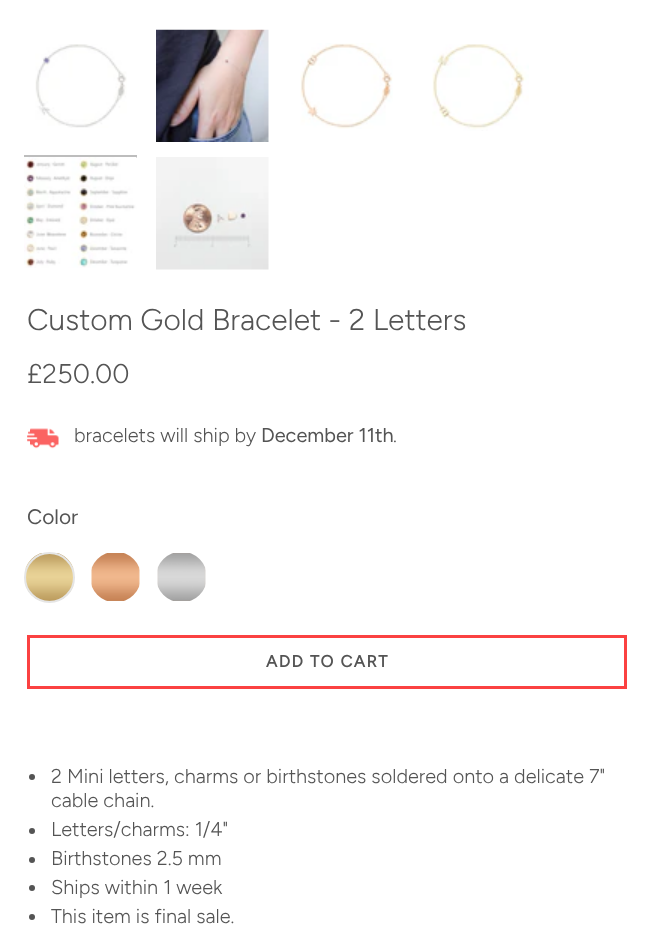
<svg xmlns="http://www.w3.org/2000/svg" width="656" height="949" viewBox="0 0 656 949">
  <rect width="100%" height="100%" fill="#ffffff"/>
  <image x="35" y="44" width="92" height="84" href="img1.png"/>
  <rect x="24" y="155" width="113" height="3" fill="#bdbdbd"/>
  <image x="156" y="29" width="113" height="113" href="img2.png"/>
  <image x="300" y="43" width="93" height="86" href="img3.png"/>
  <image x="432" y="44" width="97" height="87" href="img4.png"/>
  <image x="24" y="157" width="113" height="111" href="img5.png"/>
  <image x="156" y="157" width="113" height="113" href="img6.png"/>
  <text x="27" y="330" font-family="Figtree" font-size="30" font-weight="300" fill="#545454">Custom Gold Bracelet - 2 Letters</text>
  <text x="27" y="383" font-family="Figtree" font-size="27" font-weight="300" fill="#545454">£250.00</text>
  <image x="27" y="428" width="32" height="21" href="img7.png"/>
  <text x="74" y="442" font-family="Figtree" font-size="19.95" font-weight="300" fill="#545454">bracelets will ship by</text>
  <text x="261" y="442" font-family="Figtree" font-size="19.95" fill="#545454">December 11th</text>
  <text x="393" y="442" font-family="Figtree" font-size="19.95" font-weight="300" fill="#545454">.</text>
  <text x="27" y="524" font-family="Figtree" font-size="21" fill="#545454">Color</text>
  <image x="25" y="553" width="49" height="48" href="img8.png"/>
  <circle cx="49.5" cy="577.5" r="24.5" fill="none" stroke="#e5e5e5" stroke-width="2"/>
  <image x="91" y="553" width="49" height="48" href="img9.png"/>
  <image x="157" y="553" width="49" height="48" href="img10.png"/>
  <rect x="28.5" y="636.5" width="597" height="51" fill="none" stroke="#fb4141" stroke-width="3"/>
  <text x="266" y="667" font-family="Figtree" font-size="16.5" font-weight="bold" letter-spacing="1.5" fill="#545454">ADD TO CART</text>
  <circle cx="32" cy="777" r="3" fill="#545454"/>
  <text x="51" y="783" font-family="Figtree" font-size="19.95" font-weight="300" fill="#545454">2 Mini letters, charms or birthstones soldered onto a delicate 7"</text>
  <text x="51" y="807" font-family="Figtree" font-size="19.95" font-weight="300" fill="#545454">cable chain.</text>
  <circle cx="32" cy="831" r="3" fill="#545454"/>
  <text x="51" y="836" font-family="Figtree" font-size="19.95" font-weight="300" fill="#545454">Letters/charms: 1/4"</text>
  <circle cx="32" cy="860" r="3" fill="#545454"/>
  <text x="51" y="865" font-family="Figtree" font-size="19.95" font-weight="300" fill="#545454">Birthstones 2.5 mm</text>
  <circle cx="32" cy="888" r="3" fill="#545454"/>
  <text x="51" y="894" font-family="Figtree" font-size="19.95" font-weight="300" fill="#545454">Ships within 1 week</text>
  <circle cx="32" cy="917" r="3" fill="#545454"/>
  <text x="51" y="923" font-family="Figtree" font-size="19.95" font-weight="300" fill="#545454">This item is final sale.</text>
</svg>
